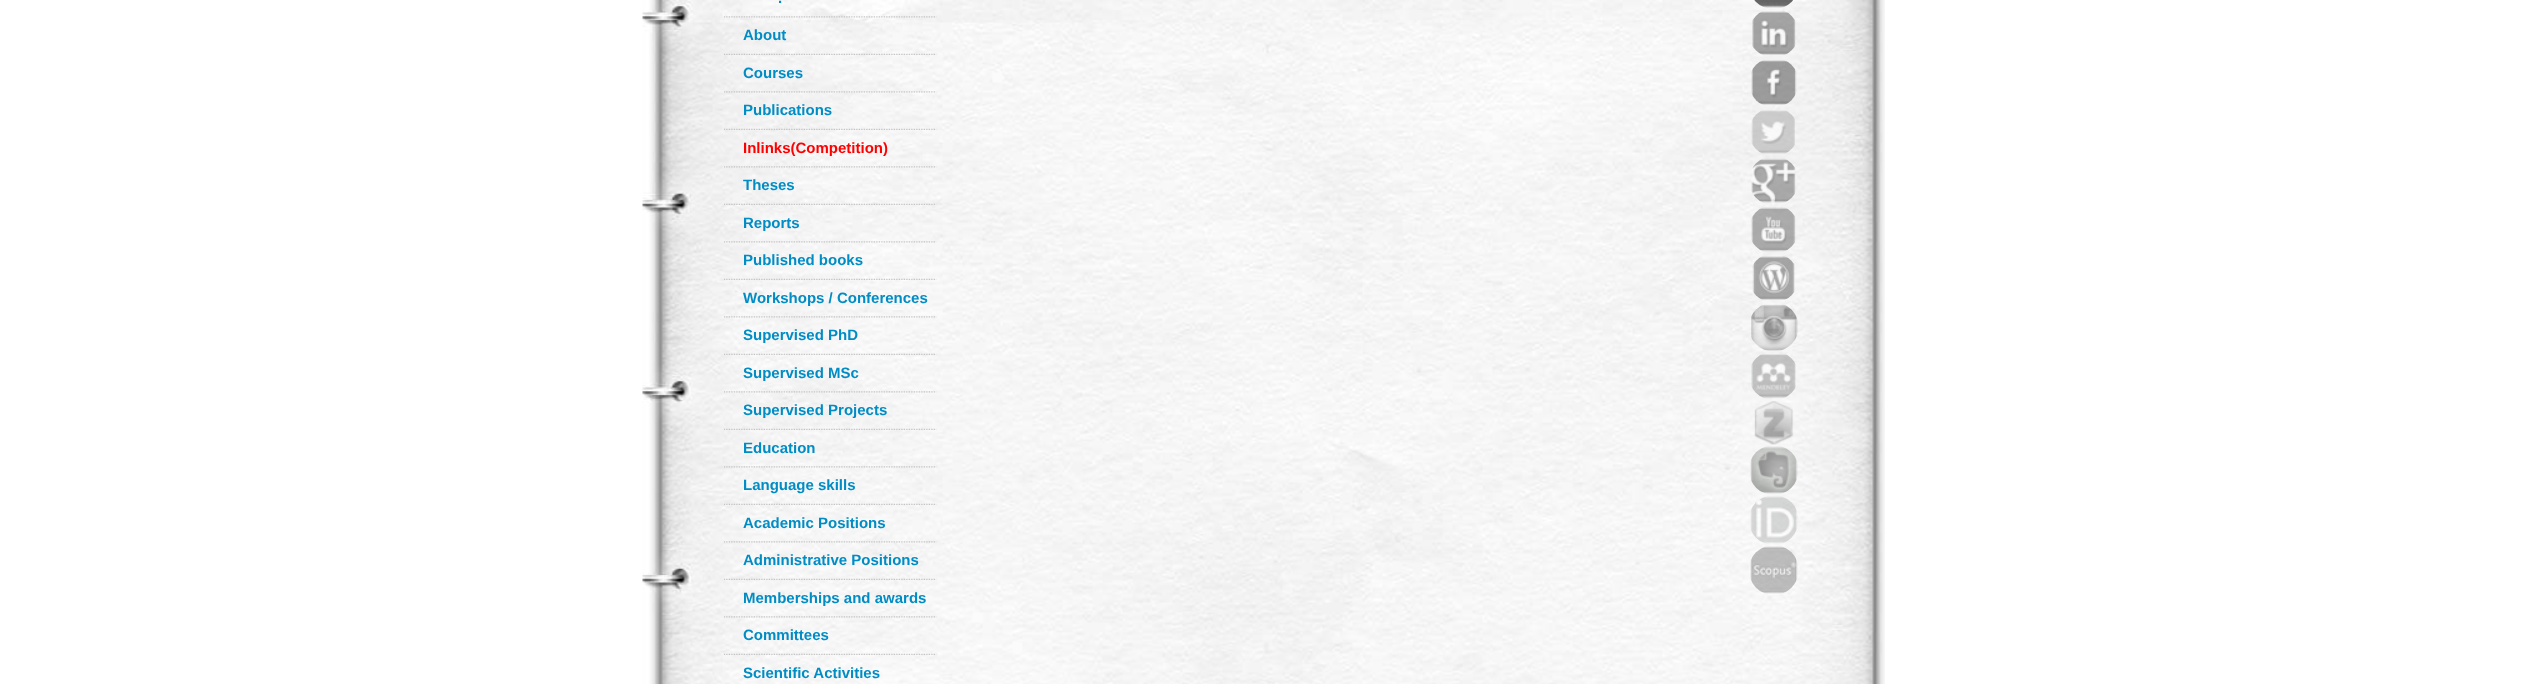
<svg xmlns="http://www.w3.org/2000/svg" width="2535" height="684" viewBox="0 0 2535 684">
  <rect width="100%" height="100%" fill="#ffffff"/>
  <image x="642" y="0" width="1243" height="684" href="img1.png"/>
  <image x="724" y="16" width="213" height="2" href="img2.png"/>
  <text x="778" y="3" font-family="Liberation Sans" font-size="15" font-weight="bold" fill="#008cc4">.</text>
  <image x="724" y="53" width="213" height="2" href="img3.png"/>
  <text x="743" y="40" font-family="Liberation Sans" font-size="15" font-weight="bold" fill="#008cc4">About</text>
  <image x="724" y="91" width="213" height="2" href="img4.png"/>
  <text x="743" y="78" font-family="Liberation Sans" font-size="15" font-weight="bold" fill="#008cc4">Courses</text>
  <image x="724" y="128" width="213" height="2" href="img5.png"/>
  <text x="743" y="115" font-family="Liberation Sans" font-size="15" font-weight="bold" fill="#008cc4">Publications</text>
  <image x="724" y="166" width="213" height="2" href="img6.png"/>
  <text x="743" y="153" font-family="Liberation Sans" font-size="15" font-weight="bold" fill="#ff0000">Inlinks(Competition)</text>
  <image x="724" y="203" width="213" height="2" href="img7.png"/>
  <text x="743" y="190" font-family="Liberation Sans" font-size="15" font-weight="bold" fill="#008cc4">Theses</text>
  <image x="724" y="241" width="213" height="2" href="img8.png"/>
  <text x="743" y="228" font-family="Liberation Sans" font-size="15" font-weight="bold" fill="#008cc4">Reports</text>
  <image x="724" y="278" width="213" height="2" href="img9.png"/>
  <text x="743" y="265" font-family="Liberation Sans" font-size="15" font-weight="bold" fill="#008cc4">Published books</text>
  <image x="724" y="316" width="213" height="2" href="img10.png"/>
  <text x="743" y="303" font-family="Liberation Sans" font-size="15" font-weight="bold" fill="#008cc4">Workshops / Conferences</text>
  <image x="724" y="353" width="213" height="2" href="img11.png"/>
  <text x="743" y="340" font-family="Liberation Sans" font-size="15" font-weight="bold" fill="#008cc4">Supervised PhD</text>
  <image x="724" y="391" width="213" height="2" href="img12.png"/>
  <text x="743" y="378" font-family="Liberation Sans" font-size="15" font-weight="bold" fill="#008cc4">Supervised MSc</text>
  <image x="724" y="428" width="213" height="2" href="img13.png"/>
  <text x="743" y="415" font-family="Liberation Sans" font-size="15" font-weight="bold" fill="#008cc4">Supervised Projects</text>
  <image x="724" y="466" width="213" height="2" href="img14.png"/>
  <text x="743" y="453" font-family="Liberation Sans" font-size="15" font-weight="bold" fill="#008cc4">Education</text>
  <image x="724" y="503" width="213" height="2" href="img15.png"/>
  <text x="743" y="490" font-family="Liberation Sans" font-size="15" font-weight="bold" fill="#008cc4">Language skills</text>
  <image x="724" y="541" width="213" height="2" href="img16.png"/>
  <text x="743" y="528" font-family="Liberation Sans" font-size="15" font-weight="bold" fill="#008cc4">Academic Positions</text>
  <image x="724" y="578" width="213" height="2" href="img17.png"/>
  <text x="743" y="565" font-family="Liberation Sans" font-size="15" font-weight="bold" fill="#008cc4">Administrative Positions</text>
  <image x="724" y="616" width="213" height="2" href="img18.png"/>
  <text x="743" y="603" font-family="Liberation Sans" font-size="15" font-weight="bold" fill="#008cc4">Memberships and awards</text>
  <image x="724" y="653" width="213" height="2" href="img19.png"/>
  <text x="743" y="640" font-family="Liberation Sans" font-size="15" font-weight="bold" fill="#008cc4">Committees</text>
  <text x="743" y="678" font-family="Liberation Sans" font-size="15" font-weight="bold" fill="#008cc4">Scientific Activities</text>
  <image x="1754" y="0" width="39" height="8" href="img20.png"/>
  <image x="1752" y="11" width="44" height="44" href="img21.png"/>
  <image x="1751" y="60" width="46" height="45" href="img22.png"/>
  <image x="1751" y="110" width="44" height="44" href="img23.png"/>
  <image x="1751" y="158" width="45" height="45" href="img24.png"/>
  <image x="1751" y="207" width="45" height="45" href="img25.png"/>
  <image x="1752" y="256" width="43" height="44" href="img26.png"/>
  <image x="1751" y="304" width="47" height="47" href="img27.png"/>
  <image x="1751" y="354" width="45" height="45" href="img28.png"/>
  <image x="1754" y="401" width="40" height="44" href="img29.png"/>
  <image x="1750" y="446" width="48" height="48" href="img30.png"/>
  <image x="1750" y="496" width="48" height="48" href="img31.png"/>
  <image x="1749" y="545" width="49" height="50" href="img32.png"/>
</svg>
